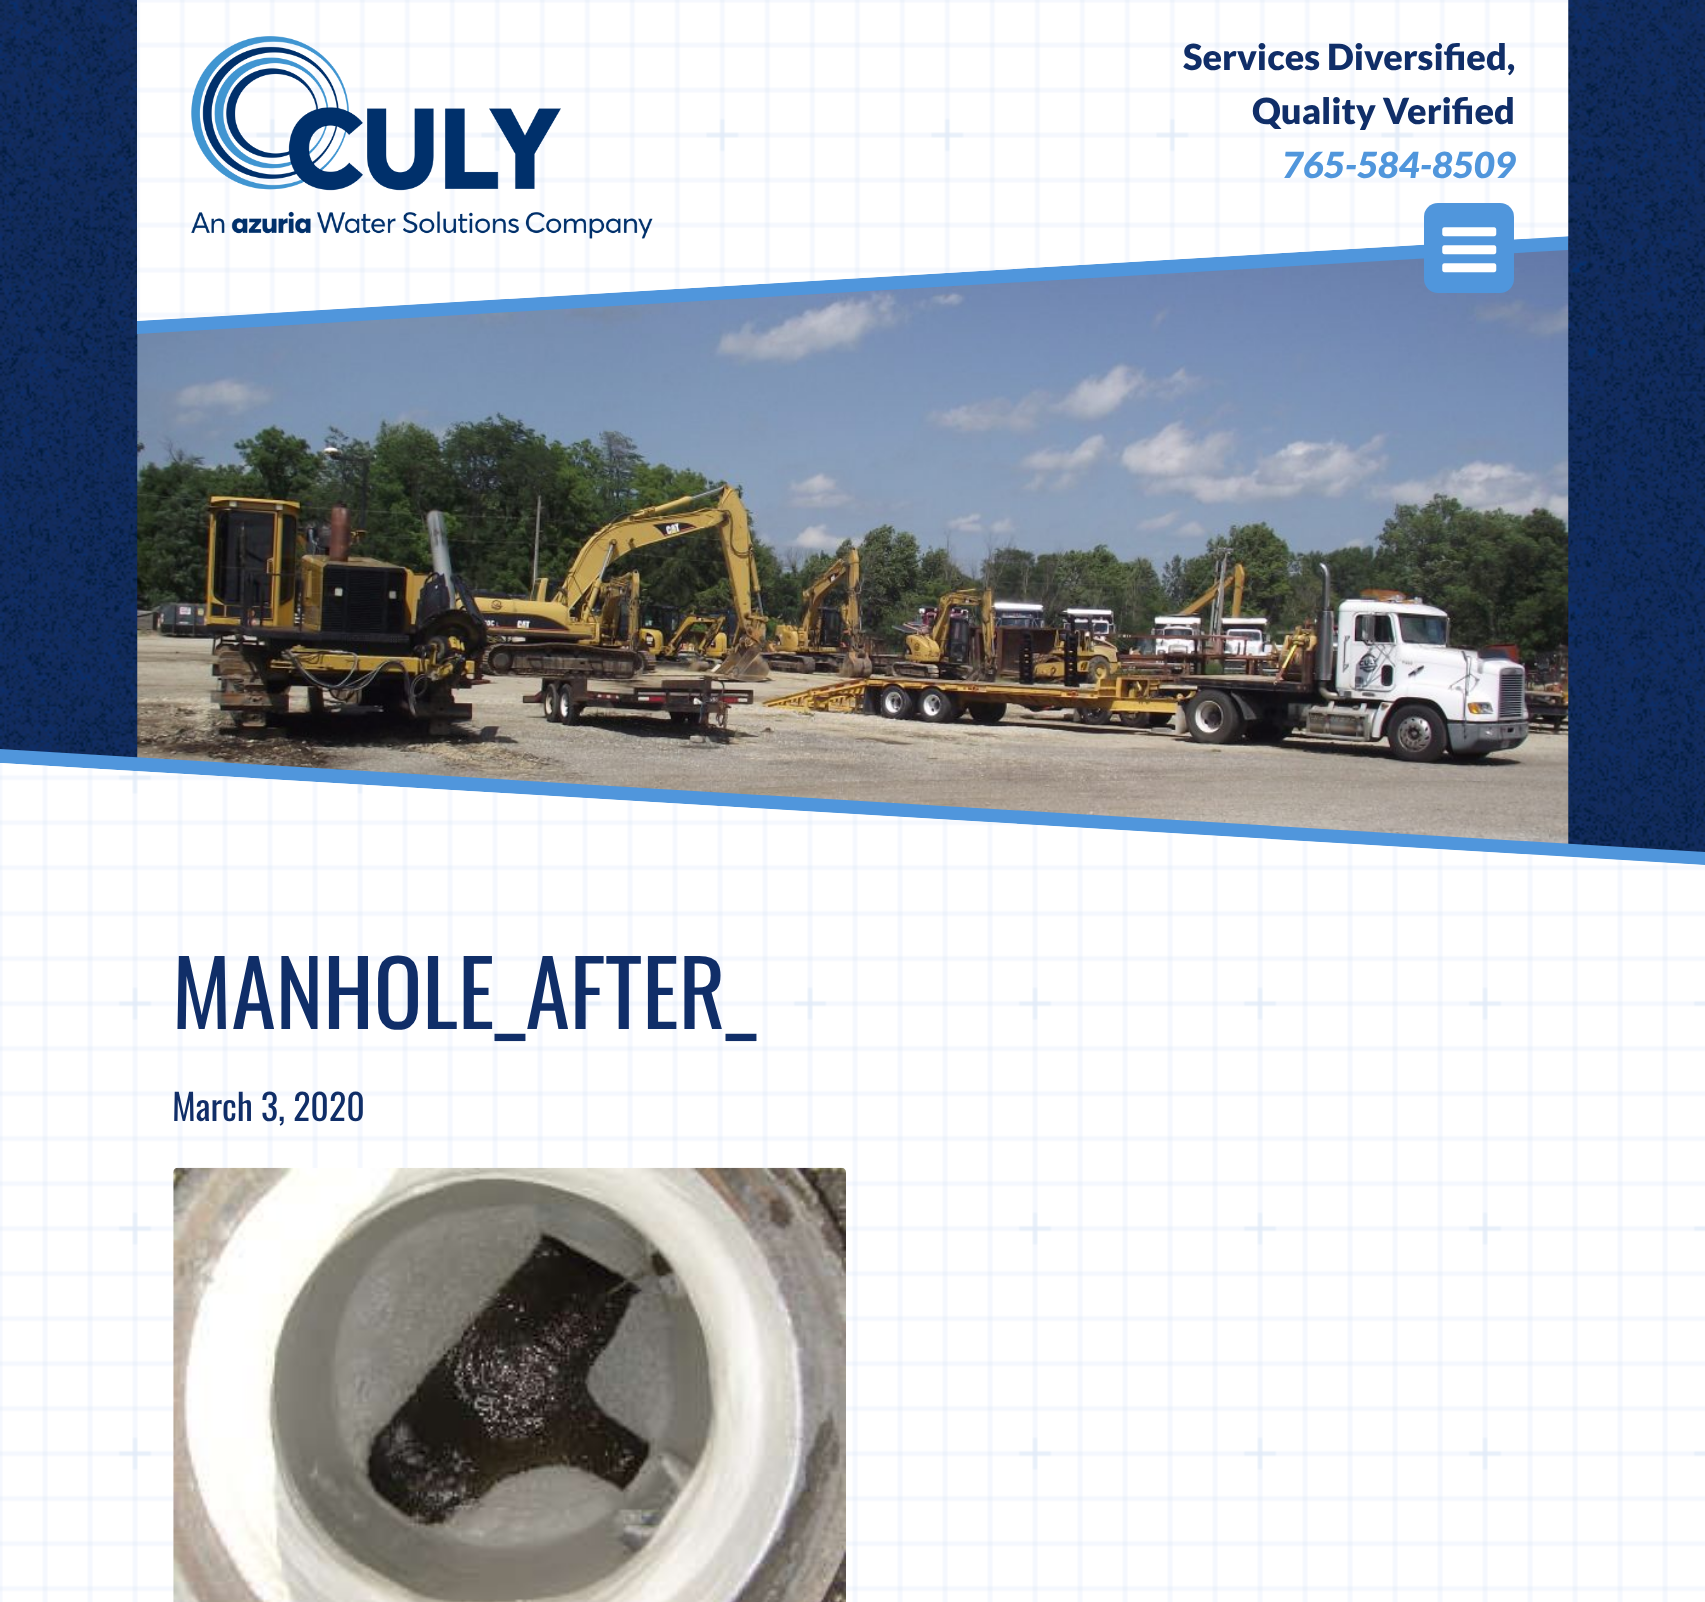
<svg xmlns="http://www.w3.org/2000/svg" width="1705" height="1602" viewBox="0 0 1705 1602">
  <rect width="100%" height="100%" fill="#ffffff"/>
  <image x="0" y="0" width="1705" height="852" href="img1.png"/>
  <image x="137" y="236" width="1432" height="608" href="img5.png"/>
  <path d="M137 0H1568V250L137 334Z" fill="#5096dc"/>
  <path d="M137 0H1568V236L137 321Z" fill="#ffffff"/>
  <image x="137" y="0" width="1432" height="321" href="img2.png"/>
  <image x="191" y="36" width="462" height="203" href="img3.png"/>
  <text x="1183" y="70" font-family="Lato" font-size="36" font-weight="900" fill="#102e68">Services Diversified,</text>
  <text x="1252" y="124" font-family="Lato" font-size="36" font-weight="900" fill="#102e68">Quality Verified</text>
  <text x="1282" y="178" font-family="Lato" font-size="36" font-weight="900" font-style="italic" fill="#5096dc">765-584-8509</text>
  <rect x="1424" y="203" width="90" height="90" rx="14" fill="#5096dc"/>
  <image x="1442" y="227" width="55" height="46" href="img4.png"/>
  <image x="0" y="872" width="1705" height="730" href="img6.png"/>
  <path d="M0 749V872H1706V852Z" fill="#5096dc"/>
  <path d="M0 763V872H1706V865Z" fill="#ffffff"/>
  <image x="0" y="763" width="1705" height="109" href="img7.png"/>
  <text x="172" y="1029" font-family="Oswald" font-size="90" fill="#102e68">MANHOLE_AFTER_</text>
  <text x="172" y="1121" font-family="Oswald" font-size="36" fill="#102e68">March 3, 2020</text>
  <image x="173" y="1167" width="673" height="435" href="img8.png"/>
</svg>
